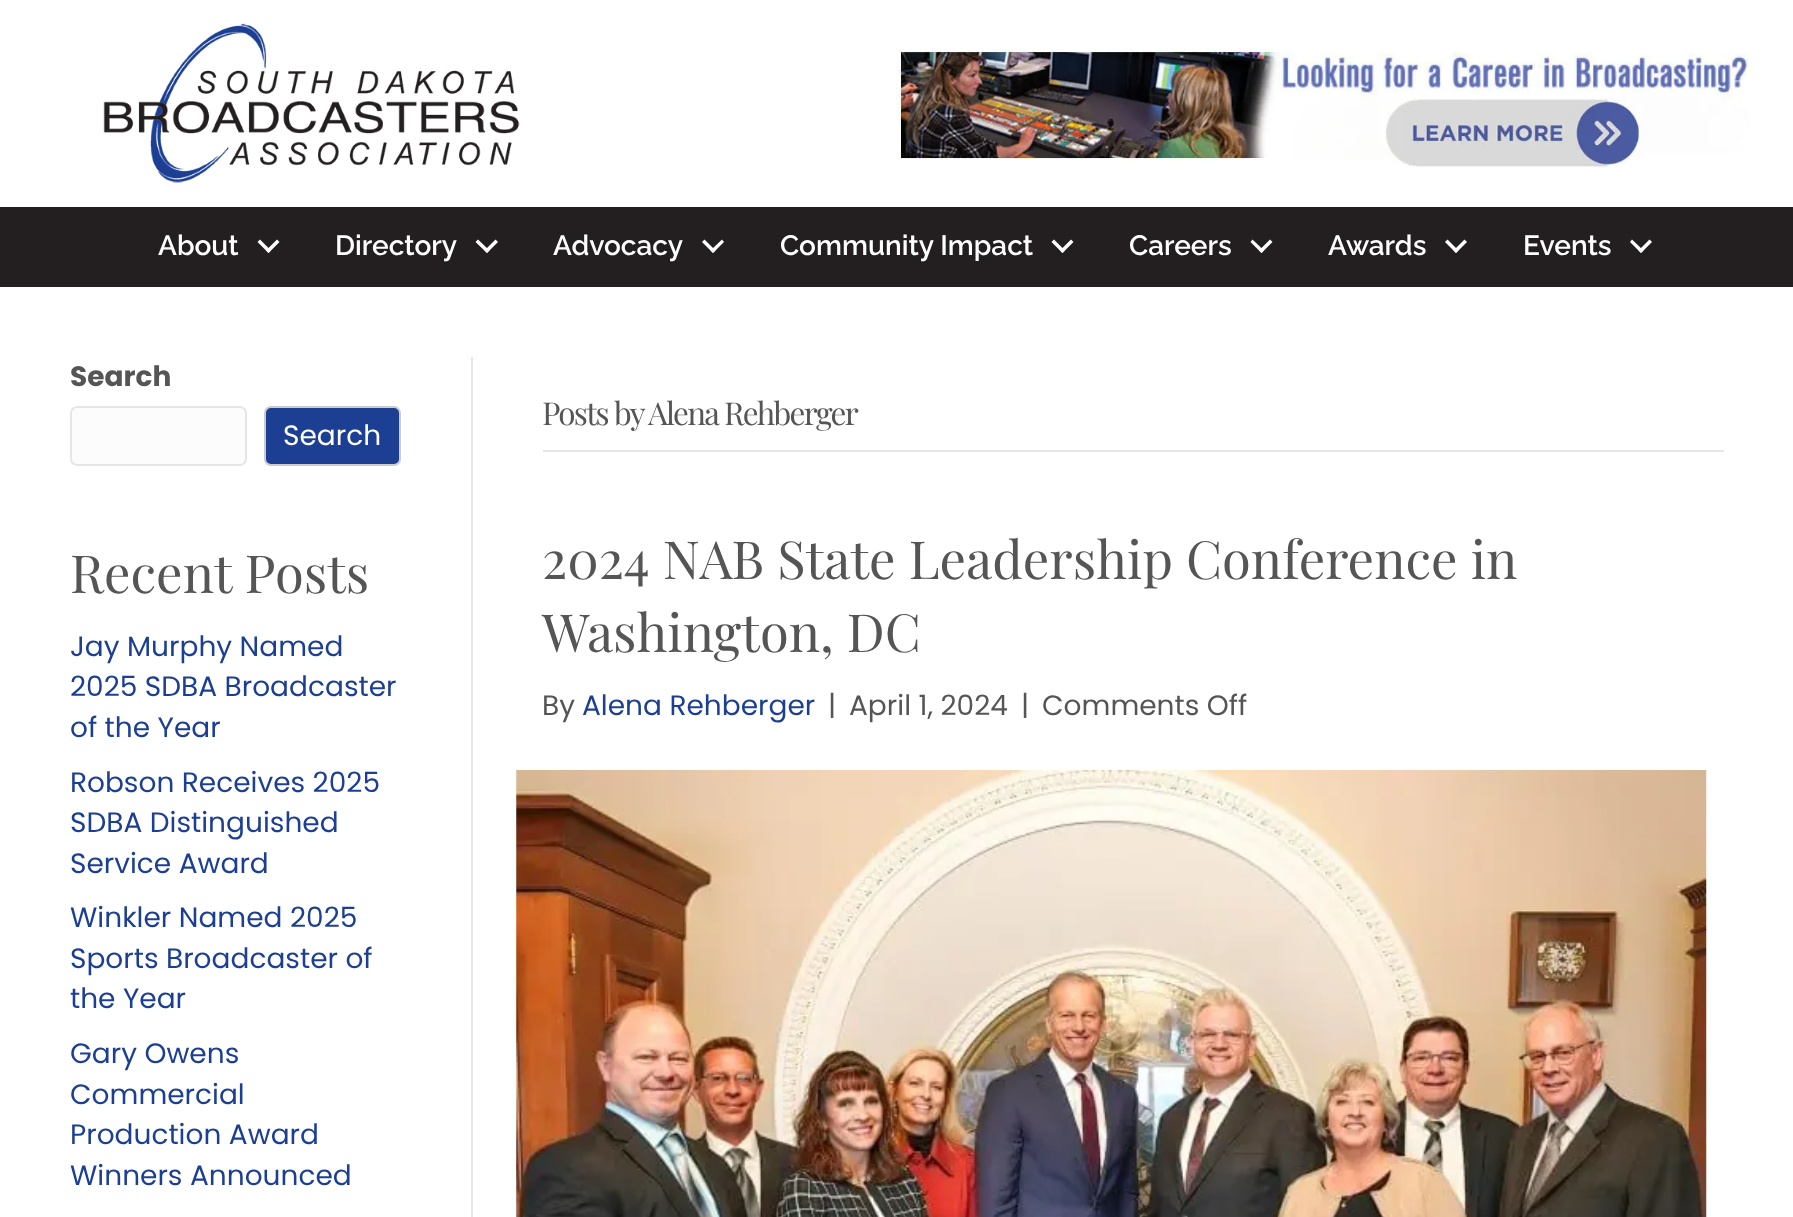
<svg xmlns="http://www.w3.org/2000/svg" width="1793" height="1217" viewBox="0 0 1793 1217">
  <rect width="100%" height="100%" fill="#ffffff"/>
  <image x="103" y="23" width="417" height="160" href="img1.png"/>
  <image x="896" y="48" width="857" height="120" href="img2.png"/>
  <rect x="0" y="207" width="1793" height="80" fill="#231f20"/>
  <text x="158" y="255" font-family="Raleway" font-size="28" font-weight="100" fill="#ffffff">About</text>
  <path d="M277 239.5L279.5 242L268.5 253L266 250.5Z" fill="#ffffff"/>
  <path d="M260 239.5L271 250.5L268.5 253L257.5 242Z" fill="#ffffff"/>
  <text x="335" y="255" font-family="Raleway" font-size="28" font-weight="100" fill="#ffffff">Directory</text>
  <path d="M495.5 239.5L498 242L487 253L484.5 250.5Z" fill="#ffffff"/>
  <path d="M478 239.5L489.5 250.5L487 253L475.5 242Z" fill="#ffffff"/>
  <text x="553" y="255" font-family="Raleway" font-size="28" font-weight="100" fill="#ffffff">Advocacy</text>
  <path d="M722 239.5L724 242L713 253L710.5 250.5Z" fill="#ffffff"/>
  <path d="M704.5 239.5L715.5 250.5L713 253L702 242Z" fill="#ffffff"/>
  <text x="780" y="255" font-family="Raleway" font-size="28" font-weight="100" fill="#ffffff">Community Impact</text>
  <path d="M1071 239.5L1073.5 242L1062.5 253L1060 250.5Z" fill="#ffffff"/>
  <path d="M1054 239.5L1065 250.5L1062.5 253L1051.5 242Z" fill="#ffffff"/>
  <text x="1129" y="255" font-family="Raleway" font-size="28" font-weight="100" fill="#ffffff">Careers</text>
  <path d="M1270 239.5L1272.5 242L1261.5 253L1259 250.5Z" fill="#ffffff"/>
  <path d="M1252.5 239.5L1264 250.5L1261.5 253L1250.5 242Z" fill="#ffffff"/>
  <text x="1328" y="255" font-family="Raleway" font-size="28" font-weight="100" fill="#ffffff">Awards</text>
  <path d="M1464.5 239.5L1467 242L1456 253L1453.5 250.5Z" fill="#ffffff"/>
  <path d="M1447.5 239.5L1458.5 250.5L1456 253L1445 242Z" fill="#ffffff"/>
  <text x="1523" y="255" font-family="Raleway" font-size="28" font-weight="100" fill="#ffffff">Events</text>
  <path d="M1649.5 239.5L1652 242L1641 253L1638.5 250.5Z" fill="#ffffff"/>
  <path d="M1632 239.5L1643.5 250.5L1641 253L1630 242Z" fill="#ffffff"/>
  <text x="70" y="386" font-family="Poppins" font-size="28" font-weight="bold" fill="#555555">Search</text>
  <rect x="71" y="407" width="175" height="58" rx="6" fill="#fcfcfc" stroke="#e6e6e6" stroke-width="2"/>
  <rect x="265" y="407" width="135" height="58" rx="6" fill="#1c3f94" stroke="#cccccc" stroke-width="2"/>
  <text x="283" y="445" font-family="Poppins" font-size="28" fill="#ffffff">Search</text>
  <text x="70" y="593" font-family="Playfair Display" font-size="52.5" fill="#555555">Recent Posts</text>
  <text x="70" y="656" font-family="Poppins" font-size="28" fill="#1c3f94">Jay Murphy Named</text>
  <text x="70" y="696" font-family="Poppins" font-size="28" fill="#1c3f94">2025 SDBA Broadcaster</text>
  <text x="70" y="737" font-family="Poppins" font-size="28" fill="#1c3f94">of the Year</text>
  <text x="70" y="792" font-family="Poppins" font-size="28" fill="#1c3f94">Robson Receives 2025</text>
  <text x="70" y="832" font-family="Poppins" font-size="28" fill="#1c3f94">SDBA Distinguished</text>
  <text x="70" y="873" font-family="Poppins" font-size="28" fill="#1c3f94">Service Award</text>
  <text x="70" y="927" font-family="Poppins" font-size="28" fill="#1c3f94">Winkler Named 2025</text>
  <text x="70" y="968" font-family="Poppins" font-size="28" fill="#1c3f94">Sports Broadcaster of</text>
  <text x="70" y="1008" font-family="Poppins" font-size="28" fill="#1c3f94">the Year</text>
  <text x="70" y="1063" font-family="Poppins" font-size="28" fill="#1c3f94">Gary Owens</text>
  <text x="70" y="1104" font-family="Poppins" font-size="28" fill="#1c3f94">Commercial</text>
  <text x="70" y="1144" font-family="Poppins" font-size="28" fill="#1c3f94">Production Award</text>
  <text x="70" y="1185" font-family="Poppins" font-size="28" fill="#1c3f94">Winners Announced</text>
  <rect x="471" y="357" width="2" height="860" fill="#e6e6e6"/>
  <rect x="543" y="450" width="1181" height="2" fill="#e6e6e6"/>
  <text x="542" y="425" font-family="Playfair Display" font-size="31.5" letter-spacing="-1.75" fill="#555555">Posts by Alena Rehberger</text>
  <text x="542" y="579" font-family="Playfair Display" font-size="52.5" fill="#555555">2024 NAB State Leadership Conference in</text>
  <text x="542" y="652" font-family="Playfair Display" font-size="52.5" fill="#555555">Washington, DC</text>
  <text x="542" y="715" font-family="Poppins" font-size="28" fill="#555555">By</text>
  <text x="582" y="715" font-family="Poppins" font-size="28" fill="#1c3f94">Alena Rehberger</text>
  <text x="828" y="715" font-family="Poppins" font-size="28" fill="#555555">|</text>
  <text x="849" y="715" font-family="Poppins" font-size="28" fill="#555555">April 1, 2024</text>
  <text x="1021" y="715" font-family="Poppins" font-size="28" fill="#555555">|</text>
  <text x="1042" y="715" font-family="Poppins" font-size="28" fill="#555555">Comments Off</text>
  <image x="516" y="770" width="1191" height="447" href="img3.png"/>
</svg>
